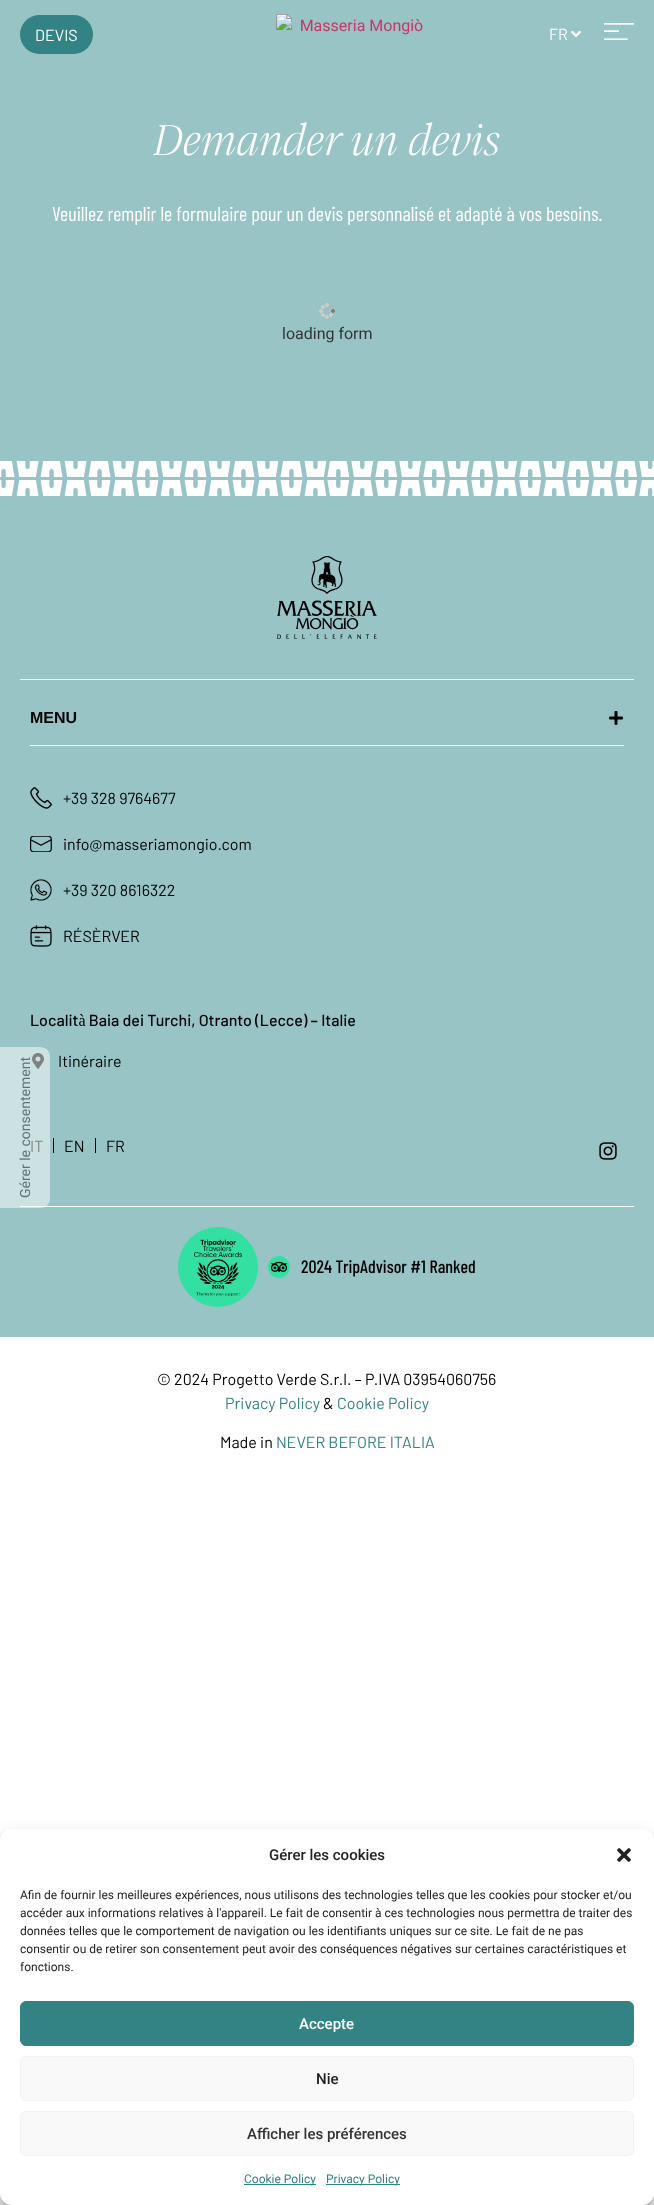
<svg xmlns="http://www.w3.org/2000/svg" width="654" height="2205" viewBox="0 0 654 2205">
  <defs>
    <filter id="blur1" x="-50%" y="-200%" width="200%" height="500%"><feGaussianBlur stdDeviation="3"/></filter>
    <filter id="blur2" x="-50%" y="-200%" width="200%" height="500%"><feGaussianBlur stdDeviation="10"/></filter>
  </defs>
  <rect width="100%" height="100%" fill="#ffffff"/>
  <rect x="0" y="0" width="654" height="1337" fill="#98c4c5"/>
  <rect x="20" y="15" width="73" height="39" rx="19.5" fill="#338284"/>
  <text x="35" y="41" font-family="Barlow" font-size="16" fill="#ffffff">DEVIS</text>
  <image x="276" y="14" width="147" height="21" href="img1.png"/>
  <text x="549" y="40" font-family="Barlow" font-size="16" fill="#ffffff">FR</text>
  <image x="571" y="30" width="10" height="8" href="img2.png"/>
  <image x="604" y="23" width="30" height="17" href="img3.png"/>
  <image x="0" y="461" width="654" height="35" href="img4.png"/>
  <text x="153" y="155" font-family="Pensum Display" font-size="45" font-weight="300" font-style="italic" fill="#ffffff">Demander un devis</text>
  <text x="52" y="221" font-family="Barlow Condensed" font-size="20" fill="#ffffff">Veuillez remplir le formulaire pour un devis personnalisé et adapté à vos besoins.</text>
  <image x="319" y="303" width="16" height="16" href="img5.png"/>
  <text x="282" y="339" font-family="Roboto" font-size="16" fill="#333333">loading form</text>
  <image x="32" y="1053" width="12" height="16" href="img12.png"/>
  <text x="30" y="1152" font-family="Barlow" font-size="16" fill="#010101">IT</text>
  <rect x="20" y="1206" width="614" height="1" fill="#ffffff"/>
  <path d="M0 1208V1047H40C46 1047 50 1051 50 1057V1198C50 1204 46 1208 40 1208Z" fill="#ffffff" fill-opacity="0.5"/>
  <text x="30" y="1198" transform="rotate(-90 30 1198)" font-family="Roboto" font-size="14" fill="#5d7374">Gérer le consentement</text>
  <image x="277" y="556" width="100" height="83" href="img6.png"/>
  <rect x="20" y="679" width="614" height="1" fill="#ffffff"/>
  <text x="30" y="723" font-family="Liberation Sans" font-size="16" font-weight="bold" fill="#010101">MENU</text>
  <image x="609" y="711" width="14" height="14" href="img7.png"/>
  <rect x="30" y="745" width="594" height="1" fill="#ffffff"/>
  <image x="30" y="787" width="22" height="22" href="img8.png"/>
  <text x="63" y="804" font-family="Barlow" font-size="16" fill="#010101">+39 328 9764677</text>
  <image x="30" y="836" width="22" height="16" href="img9.png"/>
  <text x="63" y="850" font-family="Barlow" font-size="16" fill="#010101">info@masseriamongio.com</text>
  <image x="30" y="879" width="22" height="22" href="img10.png"/>
  <text x="63" y="896" font-family="Barlow" font-size="16" fill="#010101">+39 320 8616322</text>
  <image x="30" y="925" width="22" height="22" href="img11.png"/>
  <text x="63" y="942" font-family="Barlow" font-size="16" fill="#010101">RÉSÈRVER</text>
  <text x="30" y="1026" font-family="Barlow" font-size="16" font-weight="500" fill="#010101">Località Baia dei Turchi, Otranto (Lecce) – Italie</text>
  <text x="58" y="1067" font-family="Barlow" font-size="16" fill="#010101">Itinéraire</text>
  <rect x="53" y="1138" width="1" height="15" fill="#010101"/>
  <text x="64" y="1152" font-family="Barlow" font-size="16" fill="#010101">EN</text>
  <rect x="95" y="1138" width="1" height="15" fill="#010101"/>
  <text x="106" y="1152" font-family="Barlow" font-size="16" fill="#010101">FR</text>
  <image x="599" y="1142" width="18" height="18" href="img13.png"/>
  <image x="178" y="1227" width="80" height="80" href="img14.png"/>
  <image x="268" y="1256" width="22" height="22" href="img15.png"/>
  <text x="301" y="1273" font-family="Barlow Condensed" font-size="18" font-weight="500" fill="#010101">2024 TripAdvisor #1 Ranked</text>
  <text x="157" y="1385" font-family="Barlow" font-size="16" fill="#010101">© 2024 Progetto Verde S.r.l. – P.IVA 03954060756</text>
  <text x="225" y="1409" font-family="Barlow" font-size="16" fill="#338284">Privacy Policy</text>
  <text x="323" y="1409" font-family="Barlow" font-size="16" fill="#010101">&amp;</text>
  <text x="337" y="1409" font-family="Barlow" font-size="16" fill="#338284">Cookie Policy</text>
  <text x="220" y="1448" font-family="Barlow" font-size="16" fill="#010101">Made in</text>
  <text x="276" y="1448" font-family="Barlow" font-size="16" fill="#338284">NEVER BEFORE ITALIA</text>
  <rect x="0" y="1835" width="654" height="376" rx="12" fill="#000000" fill-opacity="0.23" filter="url(#blur1)"/>
  <rect x="0" y="1839" width="654" height="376" rx="12" fill="#000000" fill-opacity="0.19" filter="url(#blur2)"/>
  <rect x="0" y="1829" width="654" height="376" rx="12" fill="#ffffff"/>
  <text x="269" y="1860" font-family="Roboto" font-size="15" font-weight="500" fill="#222222">Gérer les cookies</text>
  <image x="617" y="1848" width="14" height="14" href="img16.png"/>
  <text x="20" y="1899" font-family="Roboto" font-size="12" fill="#222222">Afin de fournir les meilleures expériences, nous utilisons des technologies telles que les cookies pour stocker et/ou</text>
  <text x="20" y="1917" font-family="Roboto" font-size="12" fill="#222222">accéder aux informations relatives à l'appareil. Le fait de consentir à ces technologies nous permettra de traiter des</text>
  <text x="20" y="1935" font-family="Roboto" font-size="12" fill="#222222">données telles que le comportement de navigation ou les identifiants uniques sur ce site. Le fait de ne pas</text>
  <text x="20" y="1953" font-family="Roboto" font-size="12" fill="#222222">consentir ou de retirer son consentement peut avoir des conséquences négatives sur certaines caractéristiques et</text>
  <text x="20" y="1971" font-family="Roboto" font-size="12" fill="#222222">fonctions.</text>
  <rect x="20.5" y="2001.5" width="613" height="44" rx="5.5" fill="#338284" stroke="#338284"/>
  <text x="299" y="2029" font-family="Roboto" font-size="15" font-weight="500" fill="#ffffff">Accepte</text>
  <rect x="20.5" y="2056.5" width="613" height="44" rx="5.5" fill="#f9f9f9" stroke="#f2f2f2"/>
  <text x="316" y="2084" font-family="Roboto" font-size="15" font-weight="500" fill="#222222">Nie</text>
  <rect x="20.5" y="2111.5" width="613" height="44" rx="5.5" fill="#f9f9f9" stroke="#f2f2f2"/>
  <text x="247" y="2139" font-family="Roboto" font-size="15" font-weight="500" fill="#333333">Afficher les préférences</text>
  <rect x="244" y="2184" width="72" height="1" fill="#338284"/>
  <text x="244" y="2183" font-family="Roboto" font-size="12" fill="#338284">Cookie Policy</text>
  <rect x="326" y="2184" width="74" height="1" fill="#338284"/>
  <text x="326" y="2183" font-family="Roboto" font-size="12" fill="#338284">Privacy Policy</text>
</svg>
